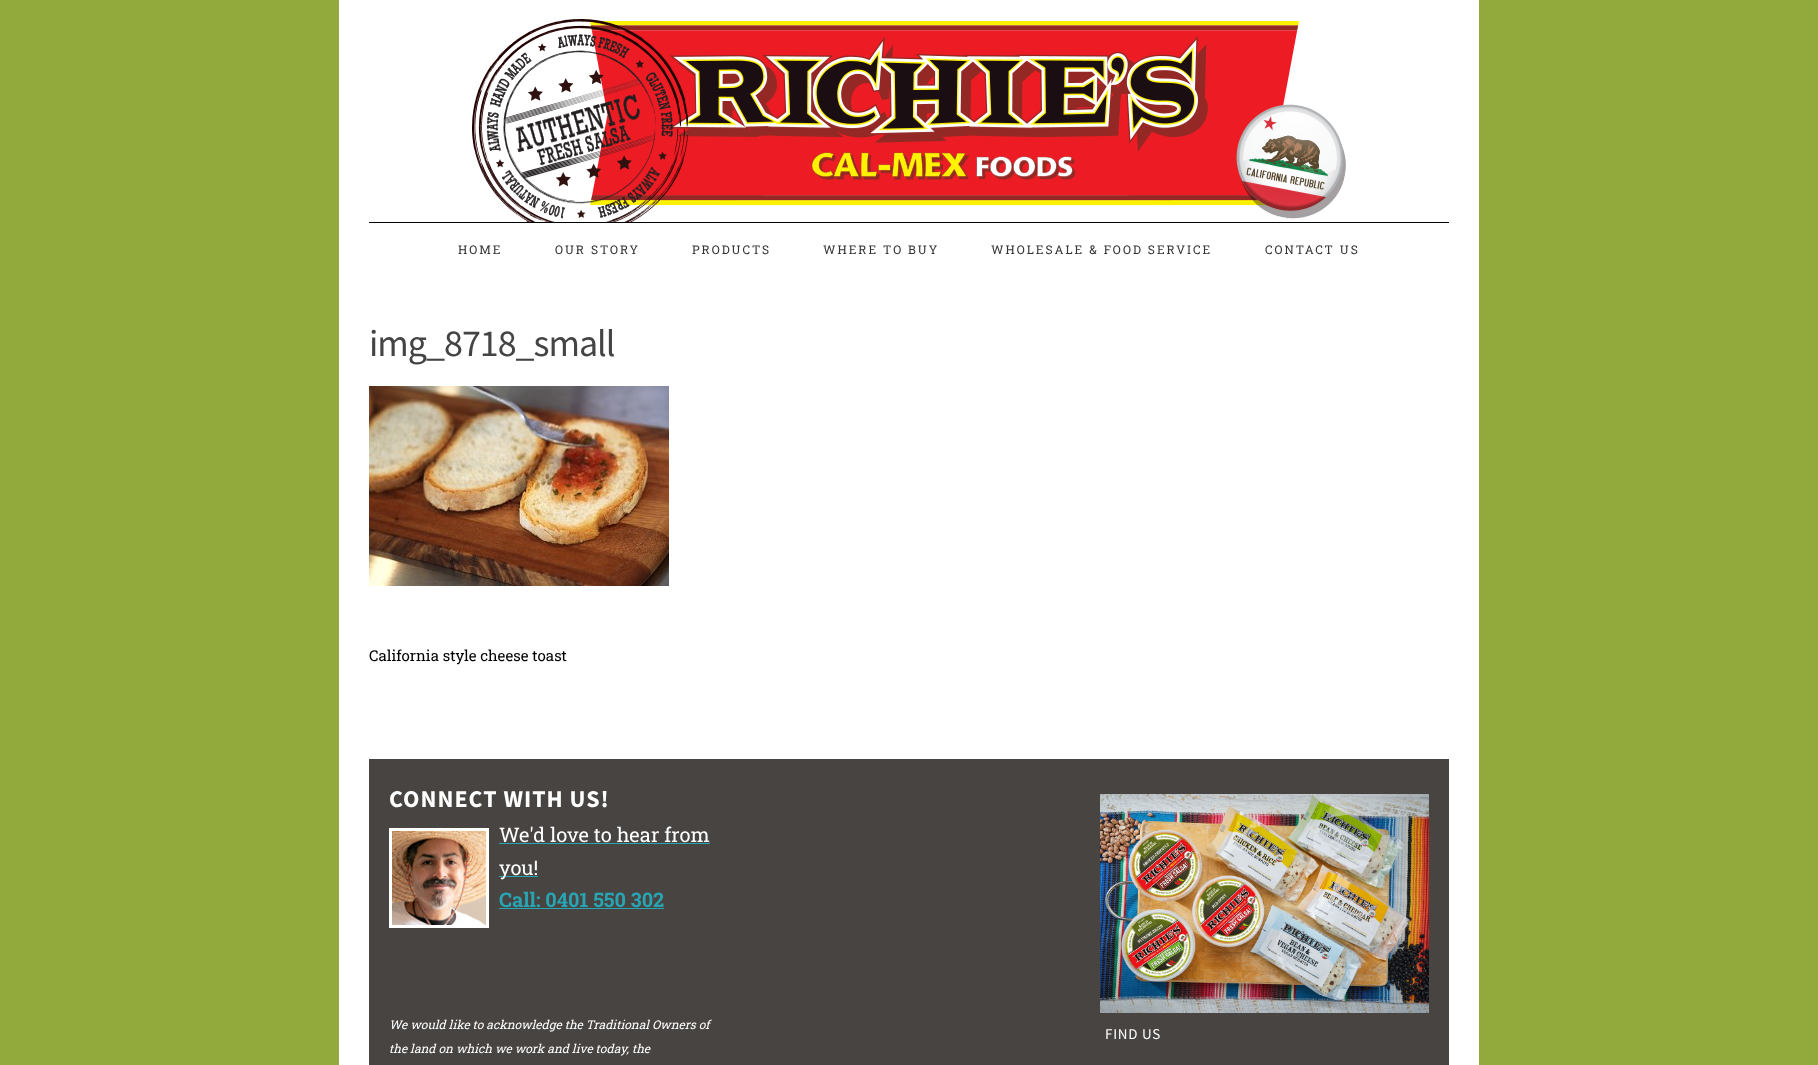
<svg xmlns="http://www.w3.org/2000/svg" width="1818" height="1065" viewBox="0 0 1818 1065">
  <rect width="100%" height="100%" fill="#92aa3c"/>
  <rect x="339" y="0" width="1140" height="1065" fill="#ffffff"/>
  <image x="472" y="19" width="874" height="203" href="img1.png"/>
  <rect x="369" y="222" width="1080" height="1" fill="#000000"/>
  <text x="458" y="254" font-family="Roboto Slab" font-size="12" letter-spacing="2" fill="#333333">HOME</text>
  <text x="555" y="254" font-family="Roboto Slab" font-size="12" letter-spacing="2" fill="#333333">OUR STORY</text>
  <text x="692" y="254" font-family="Roboto Slab" font-size="12" letter-spacing="2" fill="#333333">PRODUCTS</text>
  <text x="823" y="254" font-family="Roboto Slab" font-size="12" letter-spacing="2" fill="#333333">WHERE TO BUY</text>
  <text x="991" y="254" font-family="Roboto Slab" font-size="12" letter-spacing="2" fill="#333333">WHOLESALE &amp; FOOD SERVICE</text>
  <text x="1265" y="254" font-family="Roboto Slab" font-size="12" letter-spacing="2" fill="#333333">CONTACT US</text>
  <text x="369" y="356" font-family="Source Sans Pro" font-size="38" letter-spacing="-1" fill="#444444">img_8718_small</text>
  <image x="369" y="386" width="300" height="200" href="img2.png"/>
  <text x="369" y="661" font-family="Roboto Slab" font-size="15" fill="#000000">California style cheese toast</text>
  <rect x="369" y="759" width="1080" height="306" fill="#474442"/>
  <text x="389" y="807" font-family="Source Sans Pro" font-size="24" font-weight="bold" letter-spacing="1" fill="#ffffff">CONNECT WITH US!</text>
  <rect x="390.5" y="829.5" width="97" height="97" fill="none" stroke="#ffffff" stroke-width="3"/>
  <image x="392" y="831" width="94" height="94" href="img3.png"/>
  <text x="499" y="842" font-family="Roboto Slab" font-size="20" fill="#ffffff">We'd love to hear from</text>
  <rect x="499" y="843" width="211" height="1" fill="#29a4b2"/>
  <rect x="499" y="876" width="39" height="1" fill="#29a4b2"/>
  <text x="499" y="875" font-family="Roboto Slab" font-size="20" fill="#ffffff">you!</text>
  <text x="499" y="907" font-family="Roboto Slab" font-size="20" font-weight="bold" fill="#29a4b2">Call: 0401 550 302</text>
  <rect x="499" y="908" width="165" height="1" fill="#29a4b2"/>
  <text x="389" y="1029" font-family="Roboto Slab" font-size="12" font-style="italic" fill="#ffffff">We would like to acknowledge the Traditional Owners of</text>
  <text x="389" y="1053" font-family="Roboto Slab" font-size="12" font-style="italic" fill="#ffffff">the land on which we work and live today, the</text>
  <image x="1100" y="794" width="329" height="219" href="img4.png"/>
  <text x="1105" y="1039" font-family="Source Sans Pro" font-size="15" letter-spacing="0.75" fill="#ffffff">FIND US</text>
</svg>
